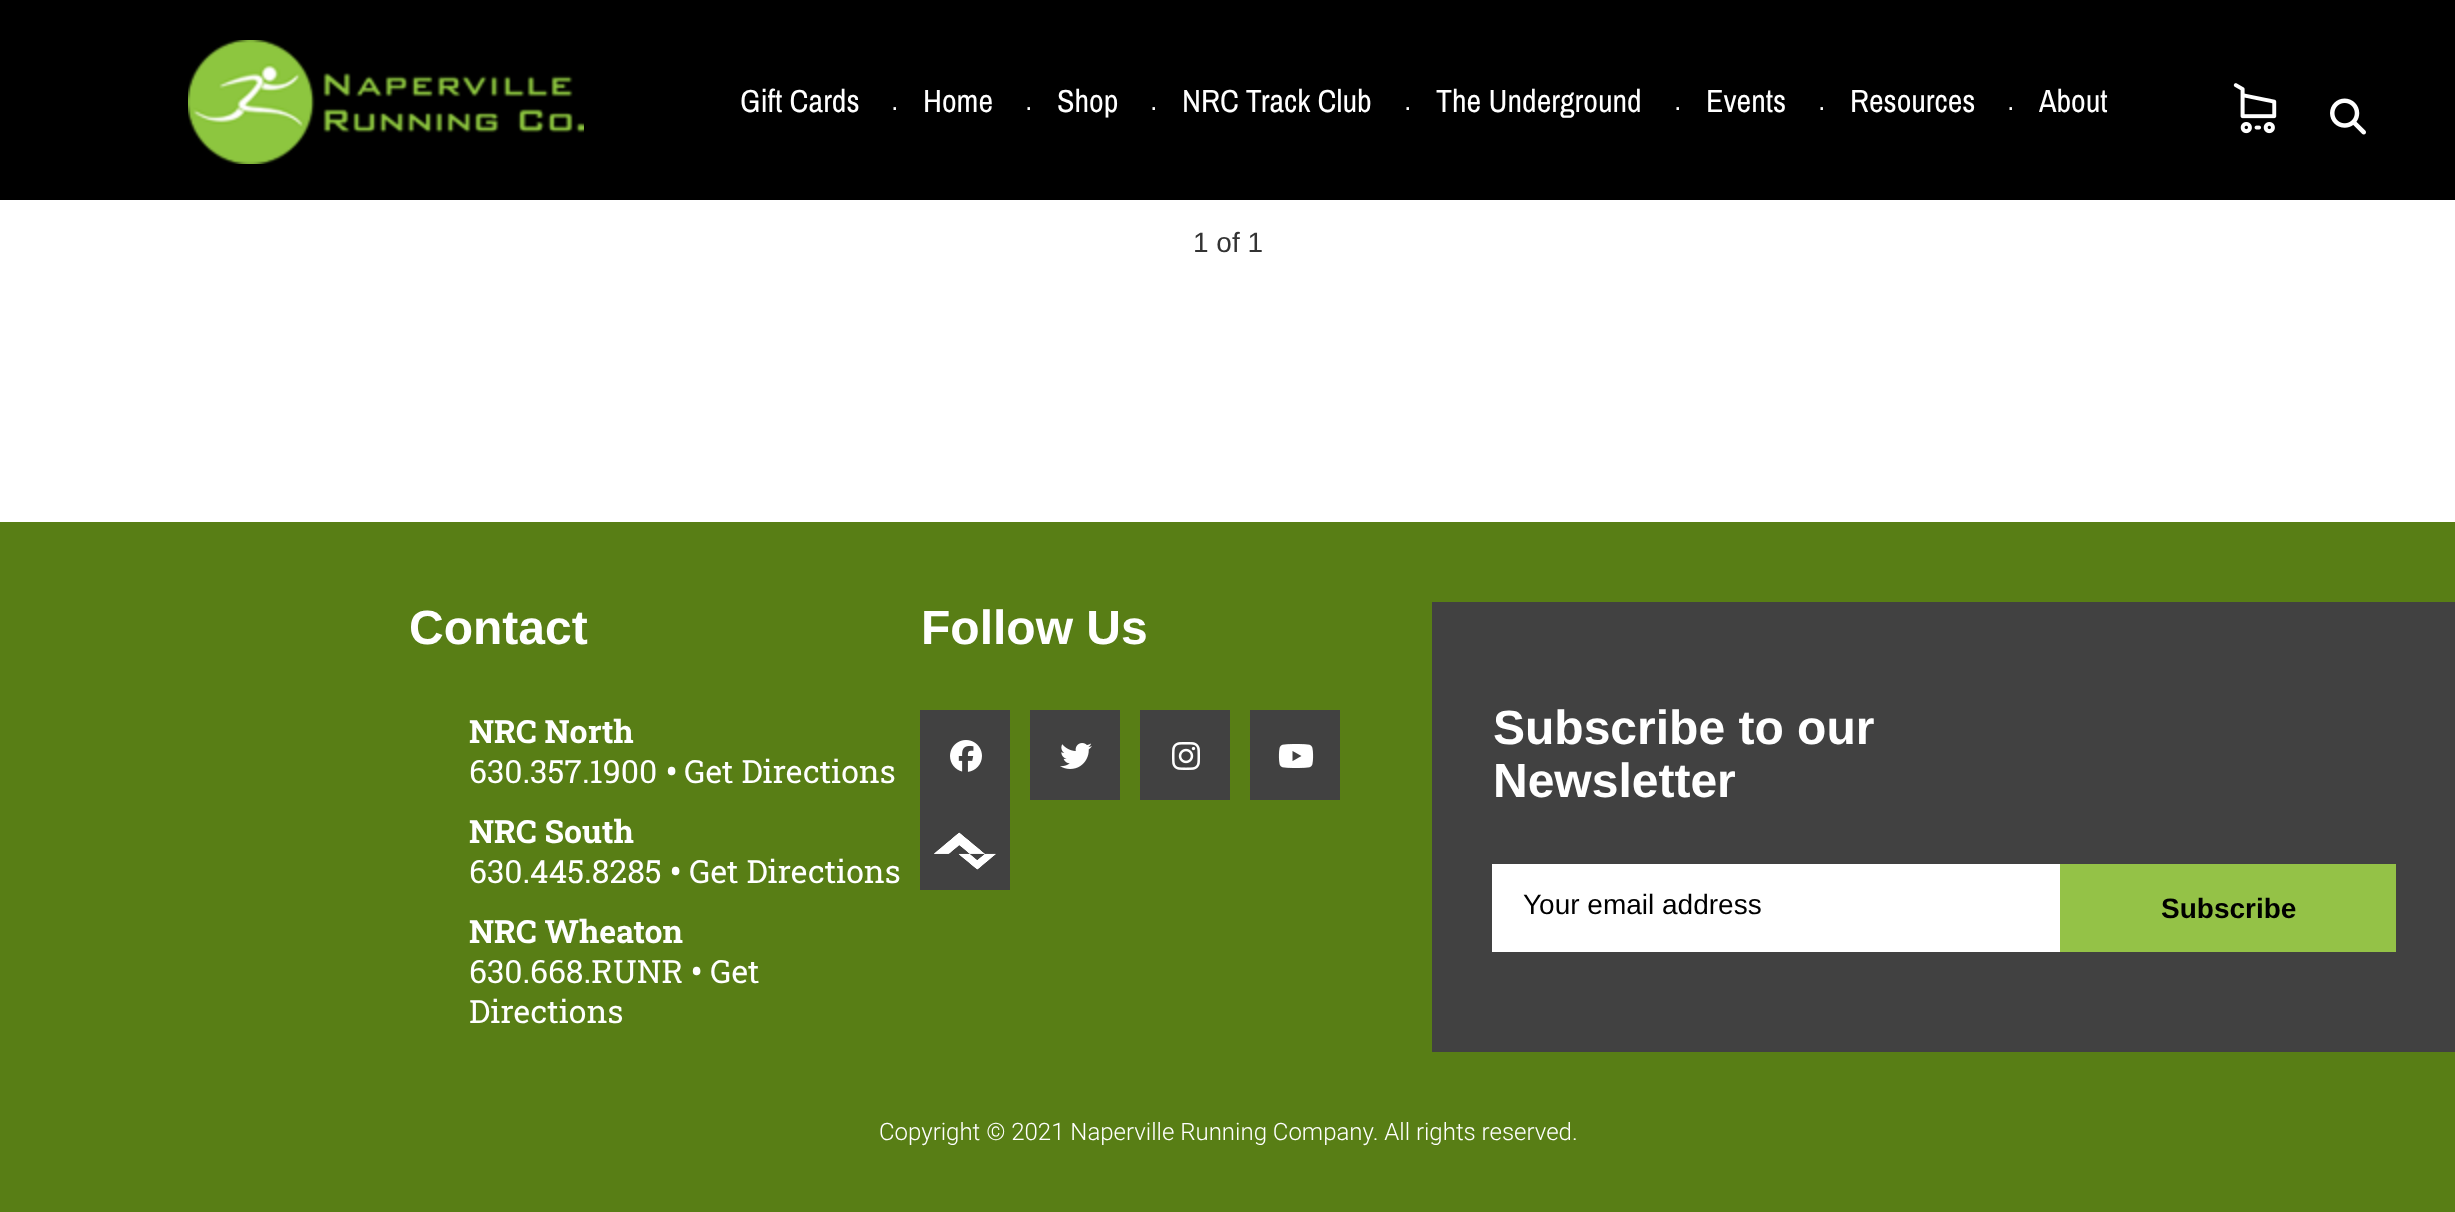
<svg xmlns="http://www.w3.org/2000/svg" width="2455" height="1212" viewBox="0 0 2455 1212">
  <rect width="100%" height="100%" fill="#ffffff"/>
  <rect x="0" y="0" width="2455" height="200" fill="#000000"/>
  <image x="188" y="40" width="396" height="124" href="img1.png"/>
  <text x="740" y="112" font-family="Archivo Narrow" font-size="32" fill="#ffffff">Gift Cards</text>
  <text x="891" y="110" font-family="Roboto Slab" font-size="36" font-weight="300" fill="#ffffff">.</text>
  <text x="923" y="112" font-family="Archivo Narrow" font-size="32" fill="#ffffff">Home</text>
  <text x="1025" y="110" font-family="Roboto Slab" font-size="36" font-weight="300" fill="#ffffff">.</text>
  <text x="1057" y="112" font-family="Archivo Narrow" font-size="32" fill="#ffffff">Shop</text>
  <text x="1150" y="110" font-family="Roboto Slab" font-size="36" font-weight="300" fill="#ffffff">.</text>
  <text x="1182" y="112" font-family="Archivo Narrow" font-size="32" fill="#ffffff">NRC Track Club</text>
  <text x="1404" y="110" font-family="Roboto Slab" font-size="36" font-weight="300" fill="#ffffff">.</text>
  <text x="1436" y="112" font-family="Archivo Narrow" font-size="32" fill="#ffffff">The Underground</text>
  <text x="1674" y="110" font-family="Roboto Slab" font-size="36" font-weight="300" fill="#ffffff">.</text>
  <text x="1706" y="112" font-family="Archivo Narrow" font-size="32" fill="#ffffff">Events</text>
  <text x="1818" y="110" font-family="Roboto Slab" font-size="36" font-weight="300" fill="#ffffff">.</text>
  <text x="1850" y="112" font-family="Archivo Narrow" font-size="32" fill="#ffffff">Resources</text>
  <text x="2007" y="110" font-family="Roboto Slab" font-size="36" font-weight="300" fill="#ffffff">.</text>
  <text x="2039" y="112" font-family="Archivo Narrow" font-size="32" fill="#ffffff">About</text>
  <image x="2233" y="83" width="44" height="51" href="img2.png"/>
  <image x="2330" y="98" width="36" height="37" href="img3.png"/>
  <text x="1193" y="252" font-family="Liberation Sans" font-size="28" fill="#333333">1 of 1</text>
  <rect x="0" y="522" width="2455" height="690" fill="#587e15"/>
  <text x="409" y="644" font-family="Liberation Sans" font-size="48" font-weight="bold" fill="#ffffff">Contact</text>
  <text x="469" y="743" font-family="Roboto Slab" font-size="32" font-weight="bold" fill="#ffffff">NRC North</text>
  <text x="469" y="783" font-family="Roboto Slab" font-size="32" fill="#ffffff">630.357.1900</text>
  <text x="666" y="783" font-family="Roboto Slab" font-size="32" font-weight="bold" fill="#ffffff">•</text>
  <text x="684" y="783" font-family="Roboto Slab" font-size="32" fill="#ffffff">Get Directions</text>
  <text x="469" y="843" font-family="Roboto Slab" font-size="32" font-weight="bold" fill="#ffffff">NRC South</text>
  <text x="469" y="883" font-family="Roboto Slab" font-size="32" fill="#ffffff">630.445.8285</text>
  <text x="670" y="883" font-family="Roboto Slab" font-size="32" font-weight="bold" fill="#ffffff">•</text>
  <text x="689" y="883" font-family="Roboto Slab" font-size="32" fill="#ffffff">Get Directions</text>
  <text x="469" y="943" font-family="Roboto Slab" font-size="32" font-weight="bold" fill="#ffffff">NRC Wheaton</text>
  <text x="469" y="983" font-family="Roboto Slab" font-size="32" fill="#ffffff">630.668.RUNR</text>
  <text x="691" y="983" font-family="Roboto Slab" font-size="32" font-weight="bold" fill="#ffffff">•</text>
  <text x="710" y="983" font-family="Roboto Slab" font-size="32" fill="#ffffff">Get</text>
  <text x="469" y="1023" font-family="Roboto Slab" font-size="32" fill="#ffffff">Directions</text>
  <text x="921" y="644" font-family="Liberation Sans" font-size="48" font-weight="bold" fill="#ffffff">Follow Us</text>
  <rect x="920" y="710" width="90" height="180" fill="#414141"/>
  <image x="950" y="740" width="32" height="32" href="img4.png"/>
  <rect x="1030" y="710" width="90" height="90" fill="#414141"/>
  <image x="1060" y="743" width="32" height="26" href="img5.png"/>
  <rect x="1140" y="710" width="90" height="90" fill="#414141"/>
  <image x="1172" y="742" width="28" height="28" href="img6.png"/>
  <rect x="1250" y="710" width="90" height="90" fill="#414141"/>
  <image x="1278" y="744" width="36" height="24" href="img7.png"/>
  <image x="934" y="832" width="62" height="38" href="img8.png"/>
  <rect x="1432" y="602" width="1023" height="450" fill="#414141"/>
  <text x="1493" y="744" font-family="Liberation Sans" font-size="48" font-weight="bold" fill="#ffffff">Subscribe to our</text>
  <text x="1493" y="797" font-family="Liberation Sans" font-size="48" font-weight="bold" fill="#ffffff">Newsletter</text>
  <rect x="1492" y="864" width="568" height="88" fill="#ffffff"/>
  <text x="1523" y="914" font-family="Liberation Sans" font-size="28" fill="#000000">Your email address</text>
  <rect x="2060" y="864" width="336" height="88" fill="#94c247"/>
  <text x="2161" y="918" font-family="Liberation Sans" font-size="28" font-weight="bold" fill="#000000">Subscribe</text>
  <text x="879" y="1140" font-family="Roboto" font-size="24" font-weight="300" fill="#ffffff">Copyright © 2021 Naperville Running Company. All rights reserved.</text>
</svg>
